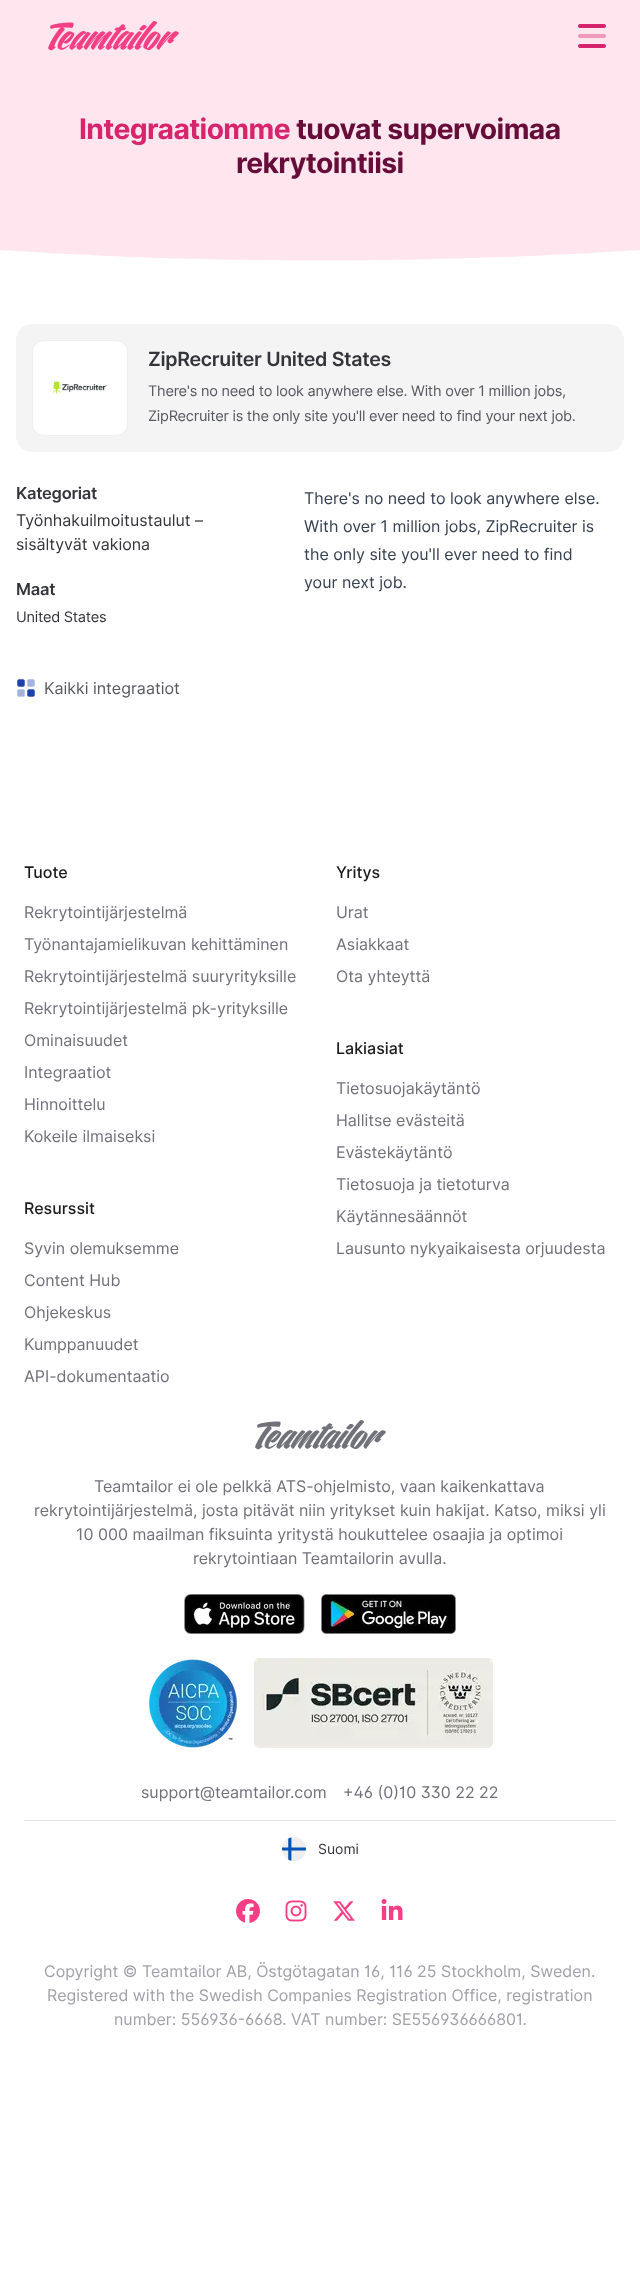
<svg xmlns="http://www.w3.org/2000/svg" width="640" height="2286" viewBox="0 0 640 2286">
  <rect width="100%" height="100%" fill="#ffffff"/>
  <path d="M0 0H640V250C427 264 213 264 0 250Z" fill="#ffe5ee"/>
  <image x="48" y="21" width="131" height="30" href="img1.png"/>
  <image x="578" y="24" width="28" height="24" href="img2.png"/>
  <text x="79" y="139" font-family="Inter" font-size="28.25" font-weight="bold" letter-spacing="-0.6" fill="#d7256d">Integraatiomme</text>
  <text x="296" y="139" font-family="Inter" font-size="28.25" font-weight="bold" letter-spacing="-0.6" fill="#660e39">tuovat supervoimaa</text>
  <text x="236" y="173" font-family="Inter" font-size="28.25" font-weight="bold" letter-spacing="-0.6" fill="#660e39">rekrytointiisi</text>
  <rect x="16" y="324" width="608" height="128" rx="16" fill="#f4f4f5"/>
  <rect x="32.5" y="340.5" width="95" height="95" rx="11.5" fill="#ffffff" stroke="#eeeef0"/>
  <image x="52" y="381" width="56" height="13" href="img3.png"/>
  <text x="148" y="366" font-family="Inter" font-size="19.6" font-weight="600" letter-spacing="-0.3" fill="#34353a">ZipRecruiter United States</text>
  <text x="148" y="396" font-family="Inter" font-size="14.55" letter-spacing="-0.25" fill="#57595f">There's no need to look anywhere else. With over 1 million jobs,</text>
  <text x="148" y="421" font-family="Inter" font-size="14.55" letter-spacing="-0.25" fill="#57595f">ZipRecruiter is the only site you'll ever need to find your next job.</text>
  <text x="16" y="499" font-family="Inter" font-size="16.5" font-weight="600" letter-spacing="-0.25" fill="#34353a">Kategoriat</text>
  <text x="16" y="526" font-family="Inter" font-size="16" fill="#34353a">Työnhakuilmoitustaulut –</text>
  <text x="16" y="550" font-family="Inter" font-size="16" fill="#34353a">sisältyvät vakiona</text>
  <text x="16" y="595" font-family="Inter" font-size="16.5" font-weight="600" letter-spacing="-0.25" fill="#34353a">Maat</text>
  <text x="16" y="622" font-family="Inter" font-size="14.55" letter-spacing="-0.25" fill="#34353a">United States</text>
  <image x="17" y="679" width="18" height="18" href="img4.png"/>
  <text x="44" y="694" font-family="Inter" font-size="16" fill="#57595f">Kaikki integraatiot</text>
  <text x="304" y="504" font-family="Inter" font-size="16" fill="#374151">There's no need to look anywhere else.</text>
  <text x="304" y="532" font-family="Inter" font-size="16" fill="#374151">With over 1 million jobs, ZipRecruiter is</text>
  <text x="304" y="560" font-family="Inter" font-size="16" fill="#374151">the only site you'll ever need to find</text>
  <text x="304" y="588" font-family="Inter" font-size="16" fill="#374151">your next job.</text>
  <text x="24" y="878" font-family="Inter" font-size="16" font-weight="500" fill="#1c1c1e">Tuote</text>
  <text x="24" y="918" font-family="Inter" font-size="16" fill="#71717a">Rekrytointijärjestelmä</text>
  <text x="24" y="950" font-family="Inter" font-size="16" fill="#71717a">Työnantajamielikuvan kehittäminen</text>
  <text x="24" y="982" font-family="Inter" font-size="16" fill="#71717a">Rekrytointijärjestelmä suuryrityksille</text>
  <text x="24" y="1014" font-family="Inter" font-size="16" fill="#71717a">Rekrytointijärjestelmä pk-yrityksille</text>
  <text x="24" y="1046" font-family="Inter" font-size="16" fill="#71717a">Ominaisuudet</text>
  <text x="24" y="1078" font-family="Inter" font-size="16" fill="#71717a">Integraatiot</text>
  <text x="24" y="1110" font-family="Inter" font-size="16" fill="#71717a">Hinnoittelu</text>
  <text x="24" y="1142" font-family="Inter" font-size="16" fill="#71717a">Kokeile ilmaiseksi</text>
  <text x="24" y="1214" font-family="Inter" font-size="16" font-weight="500" fill="#1c1c1e">Resurssit</text>
  <text x="24" y="1254" font-family="Inter" font-size="16" fill="#71717a">Syvin olemuksemme</text>
  <text x="24" y="1286" font-family="Inter" font-size="16" fill="#71717a">Content Hub</text>
  <text x="24" y="1318" font-family="Inter" font-size="16" fill="#71717a">Ohjekeskus</text>
  <text x="24" y="1350" font-family="Inter" font-size="16" fill="#71717a">Kumppanuudet</text>
  <text x="24" y="1382" font-family="Inter" font-size="16" fill="#71717a">API-dokumentaatio</text>
  <text x="336" y="878" font-family="Inter" font-size="16" font-weight="500" fill="#1c1c1e">Yritys</text>
  <text x="336" y="918" font-family="Inter" font-size="16" fill="#71717a">Urat</text>
  <text x="336" y="950" font-family="Inter" font-size="16" fill="#71717a">Asiakkaat</text>
  <text x="336" y="982" font-family="Inter" font-size="16" fill="#71717a">Ota yhteyttä</text>
  <text x="336" y="1054" font-family="Inter" font-size="16" font-weight="500" fill="#1c1c1e">Lakiasiat</text>
  <text x="336" y="1094" font-family="Inter" font-size="16" fill="#71717a">Tietosuojakäytäntö</text>
  <text x="336" y="1126" font-family="Inter" font-size="16" fill="#71717a">Hallitse evästeitä</text>
  <text x="336" y="1158" font-family="Inter" font-size="16" fill="#71717a">Evästekäytäntö</text>
  <text x="336" y="1190" font-family="Inter" font-size="16" fill="#71717a">Tietosuoja ja tietoturva</text>
  <text x="336" y="1222" font-family="Inter" font-size="16" fill="#71717a">Käytännesäännöt</text>
  <text x="336" y="1254" font-family="Inter" font-size="16" fill="#71717a">Lausunto nykyaikaisesta orjuudesta</text>
  <image x="255" y="1420" width="131" height="30" href="img5.png"/>
  <text x="94" y="1492" font-family="Inter" font-size="16" fill="#71717a">Teamtailor ei ole pelkkä ATS-ohjelmisto, vaan kaikenkattava</text>
  <text x="34" y="1516" font-family="Inter" font-size="16" fill="#71717a">rekrytointijärjestelmä, josta pitävät niin yritykset kuin hakijat. Katso, miksi yli</text>
  <text x="76" y="1540" font-family="Inter" font-size="16" fill="#71717a">10 000 maailman fiksuinta yritystä houkuttelee osaajia ja optimoi</text>
  <text x="193" y="1564" font-family="Inter" font-size="16" fill="#71717a">rekrytointiaan Teamtailorin avulla.</text>
  <image x="184" y="1594" width="121" height="40" href="img6.png"/>
  <image x="321" y="1594" width="135" height="40" href="img7.png"/>
  <image x="149" y="1659" width="88" height="89" href="img8.png"/>
  <image x="254" y="1658" width="239" height="90" href="img9.png"/>
  <text x="141" y="1798" font-family="Inter" font-size="16" fill="#71717a">support@teamtailor.com</text>
  <text x="343" y="1798" font-family="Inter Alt" font-size="16" fill="#71717a">+46 (0)10 330 22 22</text>
  <rect x="24" y="1820" width="592" height="1" fill="#e4e4e7"/>
  <image x="282" y="1837" width="24" height="24" href="img10.png"/>
  <text x="318" y="1854" font-family="Inter" font-size="14" fill="#34353a">Suomi</text>
  <image x="236" y="1899" width="24" height="24" href="img11.png"/>
  <image x="285" y="1900" width="22" height="22" href="img12.png"/>
  <image x="333" y="1901" width="22" height="20" href="img13.png"/>
  <image x="381" y="1899" width="22" height="21" href="img14.png"/>
  <text x="44" y="1977" font-family="Inter Alt" font-size="16" fill="#a1a1aa">Copyright © Teamtailor AB, Östgötagatan 16, 116 25 Stockholm, Sweden.</text>
  <text x="47" y="2001" font-family="Inter" font-size="16" fill="#a1a1aa">Registered with the Swedish Companies Registration Office, registration</text>
  <text x="114" y="2025" font-family="Inter Alt" font-size="16" fill="#a1a1aa">number: 556936-6668. VAT number: SE556936666801.</text>
</svg>
